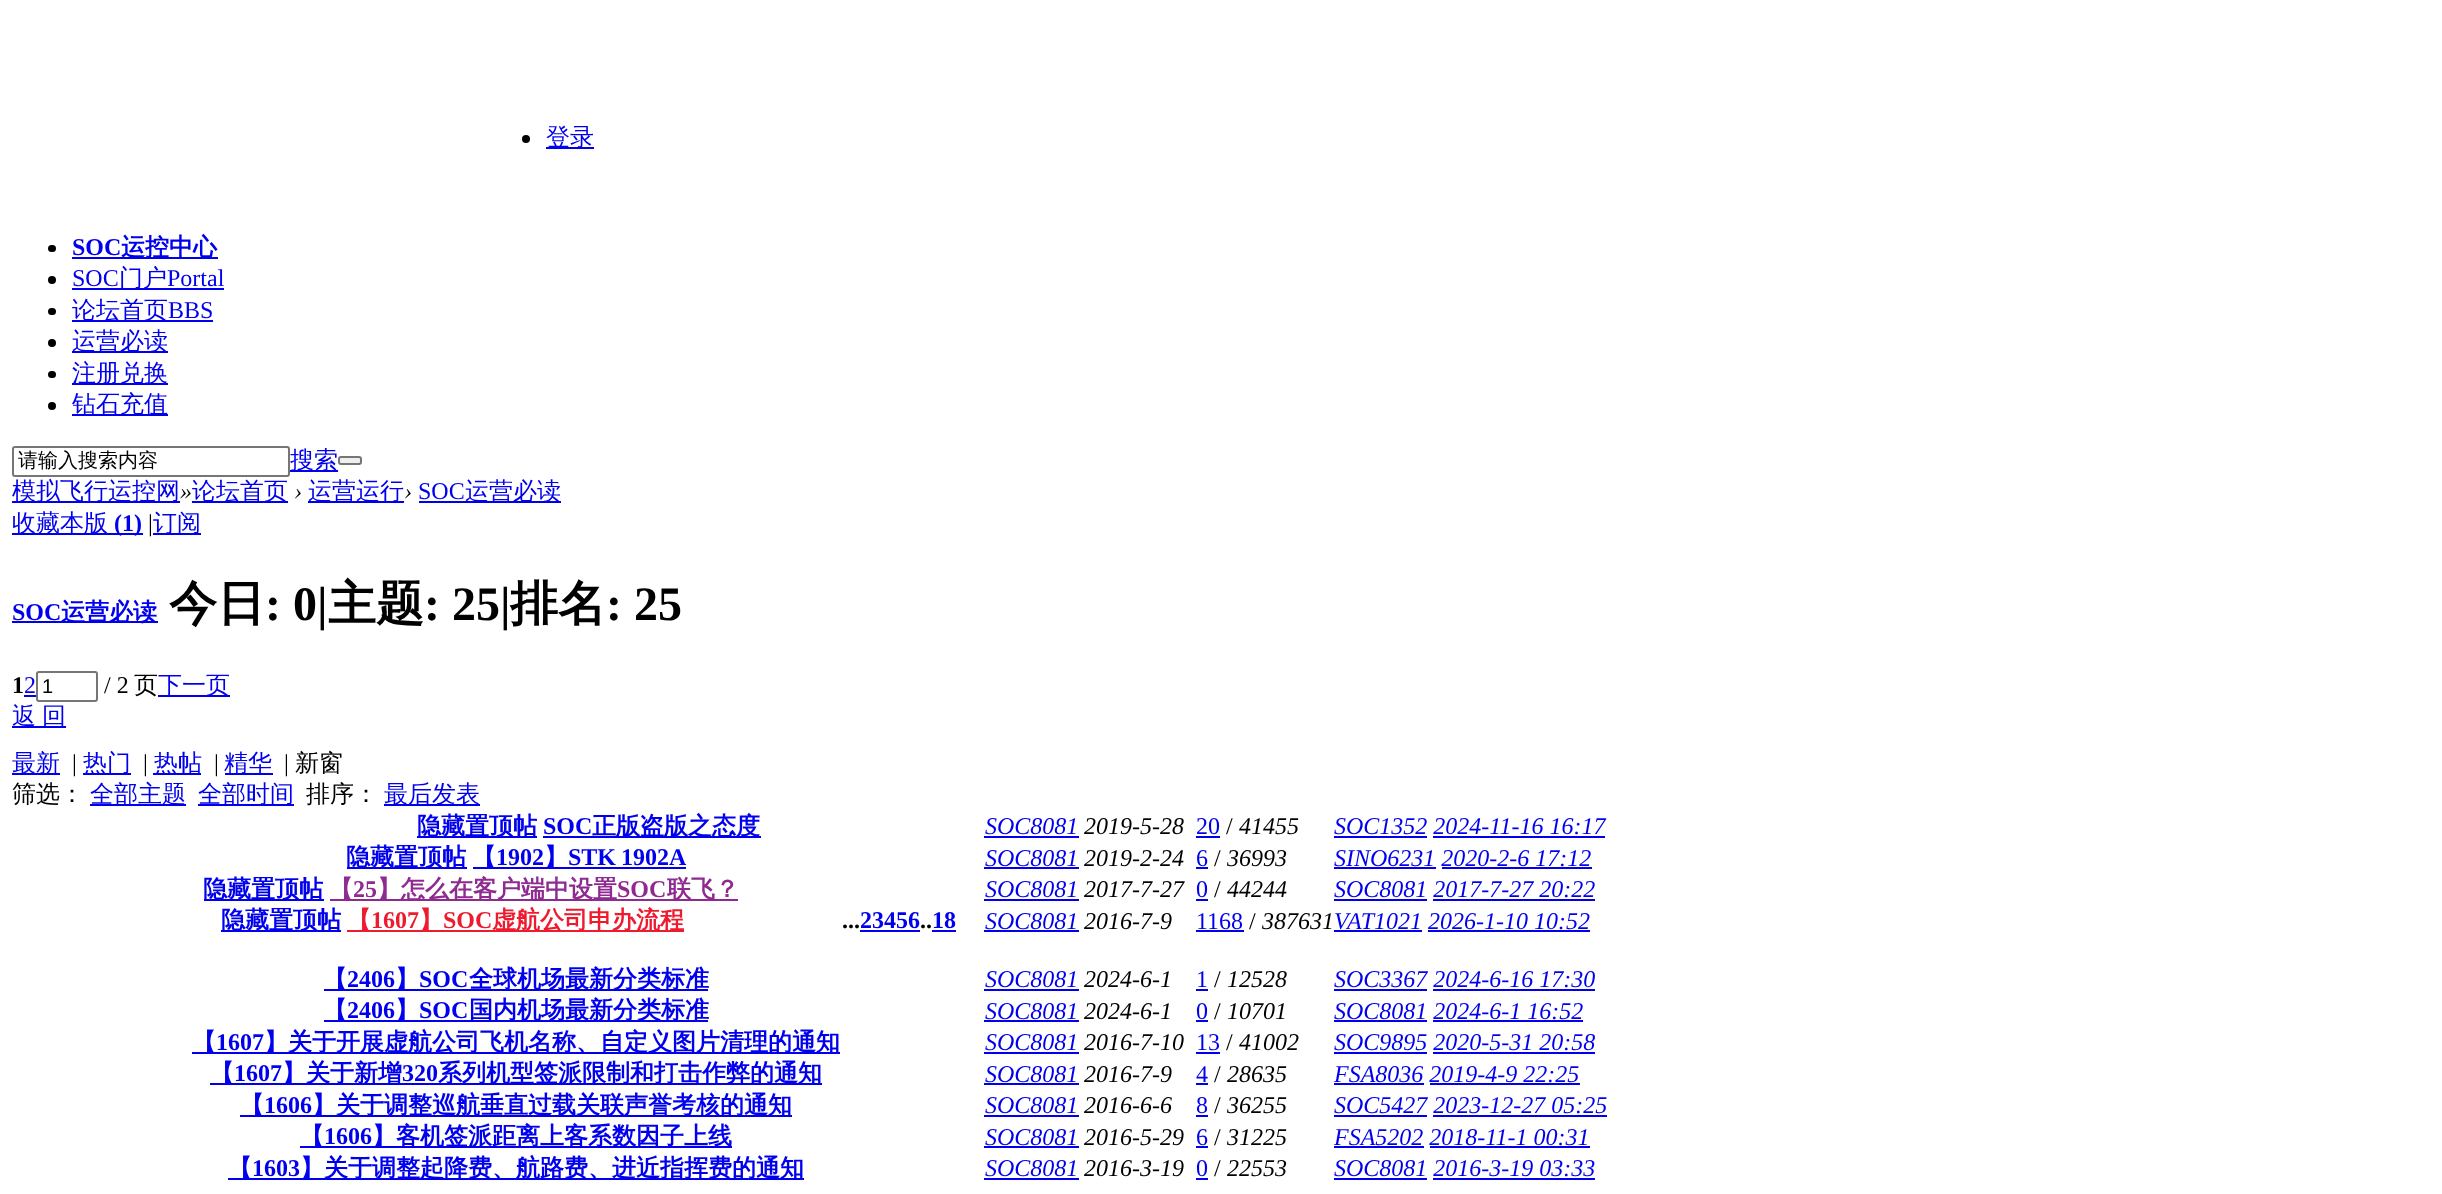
<svg xmlns="http://www.w3.org/2000/svg" width="2442" height="1194" viewBox="0 0 2442 1194">
  <rect width="100%" height="100%" fill="#ffffff"/>
  <circle cx="526" cy="139" r="4" fill="#000000"/>
  <rect x="546" y="147" width="48" height="2" fill="#0000ee"/>
  <text x="546" y="145" font-family="WenQuanYi Zen Hei" font-size="24" font-weight="500" fill="#0000ee">登录</text>
  <rect x="48" y="245" width="8" height="7" rx="3.5" fill="#000000"/>
  <text x="72" y="255" font-family="Liberation Serif" font-size="24" font-weight="bold" fill="#0000ee">SOC</text>
  <rect x="72" y="257" width="146" height="2" fill="#0000ee"/>
  <text x="121" y="255" font-family="WenQuanYi Zen Hei" font-size="24" font-weight="bold" fill="#0000ee">运控中心</text>
  <circle cx="52" cy="280" r="4" fill="#000000"/>
  <text x="72" y="286" font-family="Liberation Serif" font-size="24" fill="#0000ee">SOC</text>
  <rect x="72" y="288" width="152" height="2" fill="#0000ee"/>
  <text x="119" y="286" font-family="WenQuanYi Zen Hei" font-size="24" font-weight="500" fill="#0000ee">门户</text>
  <text x="167" y="286" font-family="Liberation Serif" font-size="24" fill="#0000ee">Portal</text>
  <rect x="48" y="308" width="8" height="7" rx="3.5" fill="#000000"/>
  <rect x="72" y="320" width="141" height="2" fill="#0000ee"/>
  <text x="72" y="318" font-family="WenQuanYi Zen Hei" font-size="24" font-weight="500" fill="#0000ee">论坛首页</text>
  <text x="168" y="318" font-family="Liberation Serif" font-size="24" fill="#0000ee">BBS</text>
  <circle cx="52" cy="343" r="4" fill="#000000"/>
  <rect x="72" y="351" width="96" height="2" fill="#0000ee"/>
  <text x="72" y="349" font-family="WenQuanYi Zen Hei" font-size="24" font-weight="500" fill="#0000ee">运营必读</text>
  <rect x="48" y="371" width="8" height="7" rx="3.5" fill="#000000"/>
  <rect x="72" y="383" width="96" height="2" fill="#0000ee"/>
  <text x="72" y="381" font-family="WenQuanYi Zen Hei" font-size="24" font-weight="500" fill="#0000ee">注册兑换</text>
  <circle cx="52" cy="406" r="4" fill="#000000"/>
  <rect x="72" y="414" width="96" height="2" fill="#0000ee"/>
  <text x="72" y="412" font-family="WenQuanYi Zen Hei" font-size="24" font-weight="500" fill="#0000ee">钻石充值</text>
  <rect x="13" y="447" width="276" height="29" rx="2" fill="none" stroke="#767676" stroke-width="2"/>
  <text x="18" y="467" font-family="WenQuanYi Zen Hei" font-size="20" font-weight="500" fill="#000000">请输入搜索内容</text>
  <rect x="290" y="470" width="48" height="2" fill="#0000ee"/>
  <text x="290" y="468" font-family="WenQuanYi Zen Hei" font-size="24" font-weight="500" fill="#0000ee">搜索</text>
  <rect x="339" y="457" width="22" height="7" rx="2" fill="#efefef" stroke="#767676" stroke-width="2"/>
  <rect x="12" y="501" width="168" height="2" fill="#0000ee"/>
  <text x="12" y="499" font-family="WenQuanYi Zen Hei" font-size="24" font-weight="500" fill="#0000ee">模拟飞行运控网</text>
  <text x="180" y="499" font-family="Liberation Serif" font-size="24" font-style="italic" fill="#000000">»</text>
  <rect x="192" y="501" width="96" height="2" fill="#0000ee"/>
  <text x="192" y="499" font-family="WenQuanYi Zen Hei" font-size="24" font-weight="500" fill="#0000ee">论坛首页</text>
  <text x="294" y="499" font-family="Liberation Serif" font-size="24" font-style="italic" fill="#000000">›</text>
  <rect x="308" y="501" width="96" height="2" fill="#0000ee"/>
  <text x="308" y="499" font-family="WenQuanYi Zen Hei" font-size="24" font-weight="500" fill="#0000ee">运营运行</text>
  <text x="404" y="499" font-family="Liberation Serif" font-size="24" font-style="italic" fill="#000000">›</text>
  <text x="418" y="499" font-family="Liberation Serif" font-size="24" fill="#0000ee">SOC</text>
  <rect x="419" y="501" width="142" height="2" fill="#0000ee"/>
  <text x="465" y="499" font-family="WenQuanYi Zen Hei" font-size="24" font-weight="500" fill="#0000ee">运营必读</text>
  <rect x="12" y="533" width="131" height="2" fill="#0000ee"/>
  <text x="12" y="531" font-family="WenQuanYi Zen Hei" font-size="24" font-weight="500" fill="#0000ee">收藏本版</text>
  <text x="114" y="531" font-family="Liberation Serif" font-size="24" font-weight="bold" fill="#0000ee">(1)</text>
  <text x="148" y="531" font-family="Liberation Serif" font-size="24" fill="#000000">|</text>
  <rect x="153" y="533" width="48" height="2" fill="#0000ee"/>
  <text x="153" y="531" font-family="WenQuanYi Zen Hei" font-size="24" font-weight="500" fill="#0000ee">订阅</text>
  <text x="12" y="620" font-family="Liberation Serif" font-size="24" font-weight="bold" fill="#0000ee">SOC</text>
  <rect x="12" y="621" width="146" height="2" fill="#0000ee"/>
  <text x="61" y="620" font-family="WenQuanYi Zen Hei" font-size="24" font-weight="bold" fill="#0000ee">运营必读</text>
  <text x="169" y="620" font-family="WenQuanYi Zen Hei" font-size="48" font-weight="bold" fill="#000000">今日</text>
  <text x="265" y="620" font-family="Liberation Serif" font-size="48" font-weight="bold" fill="#000000">: 0|</text>
  <text x="328" y="620" font-family="WenQuanYi Zen Hei" font-size="48" font-weight="bold" fill="#000000">主题</text>
  <text x="424" y="620" font-family="Liberation Serif" font-size="48" font-weight="bold" fill="#000000">: 25|</text>
  <text x="510" y="620" font-family="WenQuanYi Zen Hei" font-size="48" font-weight="bold" fill="#000000">排名</text>
  <text x="606" y="620" font-family="Liberation Serif" font-size="48" font-weight="bold" fill="#000000">: 25</text>
  <text x="12" y="693" font-family="Liberation Serif" font-size="24" font-weight="bold" fill="#000000">1</text>
  <text x="24" y="693" font-family="Liberation Serif" font-size="24" fill="#0000ee">2</text>
  <rect x="24" y="695" width="12" height="2" fill="#0000ee"/>
  <rect x="37" y="672" width="60" height="29" rx="2" fill="none" stroke="#767676" stroke-width="2"/>
  <text x="42" y="693" font-family="Liberation Sans" font-size="20" fill="#000000">1</text>
  <text x="104" y="693" font-family="Liberation Serif" font-size="24" fill="#000000">/ 2</text>
  <text x="134" y="693" font-family="WenQuanYi Zen Hei" font-size="24" font-weight="500" fill="#000000">页</text>
  <rect x="158" y="695" width="72" height="2" fill="#0000ee"/>
  <text x="158" y="693" font-family="WenQuanYi Zen Hei" font-size="24" font-weight="500" fill="#0000ee">下一页</text>
  <rect x="12" y="726" width="54" height="2" fill="#0000ee"/>
  <text x="12" y="724" font-family="WenQuanYi Zen Hei" font-size="24" font-weight="500" fill="#0000ee">返</text>
  <text x="42" y="724" font-family="WenQuanYi Zen Hei" font-size="24" font-weight="500" fill="#0000ee">回</text>
  <rect x="12" y="773" width="48" height="2" fill="#0000ee"/>
  <text x="12" y="771" font-family="WenQuanYi Zen Hei" font-size="24" font-weight="500" fill="#0000ee">最新</text>
  <text x="72" y="771" font-family="Liberation Serif" font-size="24" fill="#000000">|</text>
  <rect x="83" y="773" width="48" height="2" fill="#0000ee"/>
  <text x="83" y="771" font-family="WenQuanYi Zen Hei" font-size="24" font-weight="500" fill="#0000ee">热门</text>
  <text x="143" y="771" font-family="Liberation Serif" font-size="24" fill="#000000">|</text>
  <rect x="153" y="773" width="48" height="2" fill="#0000ee"/>
  <text x="154" y="771" font-family="WenQuanYi Zen Hei" font-size="24" font-weight="500" fill="#0000ee">热帖</text>
  <text x="214" y="771" font-family="Liberation Serif" font-size="24" fill="#000000">|</text>
  <rect x="225" y="773" width="48" height="2" fill="#0000ee"/>
  <text x="224" y="771" font-family="WenQuanYi Zen Hei" font-size="24" font-weight="500" fill="#0000ee">精华</text>
  <text x="284" y="771" font-family="Liberation Serif" font-size="24" fill="#000000">|</text>
  <text x="295" y="771" font-family="WenQuanYi Zen Hei" font-size="24" font-weight="500" fill="#000000">新窗</text>
  <text x="12" y="802" font-family="WenQuanYi Zen Hei" font-size="24" font-weight="500" fill="#000000">筛选：</text>
  <rect x="90" y="804" width="96" height="2" fill="#0000ee"/>
  <text x="90" y="802" font-family="WenQuanYi Zen Hei" font-size="24" font-weight="500" fill="#0000ee">全部主题</text>
  <rect x="198" y="804" width="96" height="2" fill="#0000ee"/>
  <text x="198" y="802" font-family="WenQuanYi Zen Hei" font-size="24" font-weight="500" fill="#0000ee">全部时间</text>
  <text x="306" y="802" font-family="WenQuanYi Zen Hei" font-size="24" font-weight="500" fill="#000000">排序：</text>
  <rect x="384" y="804" width="96" height="2" fill="#0000ee"/>
  <text x="384" y="802" font-family="WenQuanYi Zen Hei" font-size="24" font-weight="500" fill="#0000ee">最后发表</text>
  <rect x="417" y="836" width="120" height="2" fill="#0000ee"/>
  <text x="417" y="834" font-family="WenQuanYi Zen Hei" font-size="24" font-weight="bold" fill="#0000ee">隐藏置顶帖</text>
  <text x="543" y="834" font-family="Liberation Serif" font-size="24" font-weight="bold" fill="#0000ee">SOC</text>
  <rect x="543" y="836" width="218" height="2" fill="#0000ee"/>
  <text x="592" y="834" font-family="WenQuanYi Zen Hei" font-size="24" font-weight="bold" fill="#0000ee">正版盗版之态度</text>
  <text x="985" y="834" font-family="Liberation Serif" font-size="24" font-style="italic" fill="#0000ee">SOC8081</text>
  <rect x="984" y="836" width="95" height="2" fill="#0000ee"/>
  <text x="1084" y="834" font-family="Liberation Serif" font-size="24" font-style="italic" fill="#000000">2019-5-28</text>
  <text x="1196" y="834" font-family="Liberation Serif" font-size="24" fill="#0000ee">20</text>
  <rect x="1196" y="836" width="24" height="2" fill="#0000ee"/>
  <text x="1226" y="834" font-family="Liberation Serif" font-size="24" fill="#000000">/</text>
  <text x="1239" y="834" font-family="Liberation Serif" font-size="24" font-style="italic" fill="#000000">41455</text>
  <text x="1334" y="834" font-family="Liberation Serif" font-size="24" font-style="italic" fill="#0000ee">SOC1352 2024-11-16 16:17</text>
  <rect x="1334" y="836" width="93" height="2" fill="#0000ee"/>
  <rect x="1433" y="836" width="172" height="2" fill="#0000ee"/>
  <rect x="347" y="867" width="120" height="2" fill="#0000ee"/>
  <text x="346" y="865" font-family="WenQuanYi Zen Hei" font-size="24" font-weight="bold" fill="#0000ee">隐藏置顶帖</text>
  <rect x="473" y="867" width="213" height="2" fill="#0000ee"/>
  <text x="472" y="865" font-family="WenQuanYi Zen Hei" font-size="24" font-weight="bold" fill="#0000ee">【</text>
  <text x="496" y="865" font-family="Liberation Serif" font-size="24" font-weight="bold" fill="#0000ee">1902</text>
  <text x="544" y="865" font-family="WenQuanYi Zen Hei" font-size="24" font-weight="bold" fill="#0000ee">】</text>
  <text x="568" y="865" word-spacing="-1" font-family="Liberation Serif" font-size="24" font-weight="bold" fill="#0000ee">STK 1902A</text>
  <text x="985" y="866" font-family="Liberation Serif" font-size="24" font-style="italic" fill="#0000ee">SOC8081</text>
  <rect x="984" y="867" width="95" height="2" fill="#0000ee"/>
  <text x="1084" y="866" font-family="Liberation Serif" font-size="24" font-style="italic" fill="#000000">2019-2-24</text>
  <text x="1196" y="866" font-family="Liberation Serif" font-size="24" fill="#0000ee">6</text>
  <rect x="1196" y="867" width="12" height="2" fill="#0000ee"/>
  <text x="1214" y="866" font-family="Liberation Serif" font-size="24" fill="#000000">/</text>
  <text x="1227" y="866" font-family="Liberation Serif" font-size="24" font-style="italic" fill="#000000">36993</text>
  <text x="1334" y="866" font-family="Liberation Serif" font-size="24" font-style="italic" fill="#0000ee">SINO6231 2020-2-6 17:12</text>
  <rect x="1334" y="867" width="102" height="2" fill="#0000ee"/>
  <rect x="1442" y="867" width="150" height="2" fill="#0000ee"/>
  <rect x="204" y="899" width="120" height="2" fill="#0000ee"/>
  <text x="203" y="897" font-family="WenQuanYi Zen Hei" font-size="24" font-weight="bold" fill="#0000ee">隐藏置顶帖</text>
  <rect x="330" y="899" width="408" height="2" fill="#8f2a90"/>
  <text x="329" y="897" font-family="WenQuanYi Zen Hei" font-size="24" font-weight="bold" fill="#8f2a90">【</text>
  <text x="353" y="897" font-family="Liberation Serif" font-size="24" font-weight="bold" fill="#8f2a90">25</text>
  <text x="377" y="897" font-family="WenQuanYi Zen Hei" font-size="24" font-weight="bold" fill="#8f2a90">】怎么在客户端中设置</text>
  <text x="617" y="897" font-family="Liberation Serif" font-size="24" font-weight="bold" fill="#8f2a90">SOC</text>
  <text x="667" y="897" font-family="WenQuanYi Zen Hei" font-size="24" font-weight="bold" fill="#8f2a90">联飞？</text>
  <text x="985" y="897" font-family="Liberation Serif" font-size="24" font-style="italic" fill="#0000ee">SOC8081</text>
  <rect x="984" y="899" width="95" height="2" fill="#0000ee"/>
  <text x="1084" y="897" font-family="Liberation Serif" font-size="24" font-style="italic" fill="#000000">2017-7-27</text>
  <text x="1196" y="897" font-family="Liberation Serif" font-size="24" fill="#0000ee">0</text>
  <rect x="1196" y="899" width="12" height="2" fill="#0000ee"/>
  <text x="1214" y="897" font-family="Liberation Serif" font-size="24" fill="#000000">/</text>
  <text x="1227" y="897" font-family="Liberation Serif" font-size="24" font-style="italic" fill="#000000">44244</text>
  <text x="1334" y="897" font-family="Liberation Serif" font-size="24" font-style="italic" fill="#0000ee">SOC8081 2017-7-27 20:22</text>
  <rect x="1334" y="899" width="93" height="2" fill="#0000ee"/>
  <rect x="1433" y="899" width="162" height="2" fill="#0000ee"/>
  <rect x="221" y="930" width="120" height="2" fill="#0000ee"/>
  <text x="221" y="928" font-family="WenQuanYi Zen Hei" font-size="24" font-weight="bold" fill="#0000ee">隐藏置顶帖</text>
  <rect x="347" y="930" width="337" height="2" fill="#ee1b2e"/>
  <text x="347" y="928" font-family="WenQuanYi Zen Hei" font-size="24" font-weight="bold" fill="#ee1b2e">【</text>
  <text x="371" y="928" font-family="Liberation Serif" font-size="24" font-weight="bold" fill="#ee1b2e">1607</text>
  <text x="419" y="928" font-family="WenQuanYi Zen Hei" font-size="24" font-weight="bold" fill="#ee1b2e">】</text>
  <text x="443" y="928" font-family="Liberation Serif" font-size="24" font-weight="bold" fill="#ee1b2e">SOC</text>
  <text x="492" y="928" font-family="WenQuanYi Zen Hei" font-size="24" font-weight="bold" fill="#ee1b2e">虚航公司申办流程</text>
  <text x="842" y="928" font-family="Liberation Serif" font-size="24" font-weight="bold" fill="#000000">...</text>
  <rect x="860" y="930" width="60" height="2" fill="#0000ee"/>
  <text x="860" y="928" font-family="Liberation Serif" font-size="24" font-weight="bold" fill="#0000ee">23456</text>
  <text x="920" y="928" font-family="Liberation Serif" font-size="24" font-weight="bold" fill="#000000">..</text>
  <rect x="932" y="930" width="24" height="2" fill="#0000ee"/>
  <text x="932" y="928" font-family="Liberation Serif" font-size="24" font-weight="bold" fill="#0000ee">18</text>
  <text x="985" y="929" font-family="Liberation Serif" font-size="24" font-style="italic" fill="#0000ee">SOC8081</text>
  <rect x="984" y="930" width="95" height="2" fill="#0000ee"/>
  <text x="1084" y="929" font-family="Liberation Serif" font-size="24" font-style="italic" fill="#000000">2016-7-9</text>
  <text x="1196" y="929" font-family="Liberation Serif" font-size="24" fill="#0000ee">1168</text>
  <rect x="1196" y="930" width="48" height="2" fill="#0000ee"/>
  <text x="1249" y="929" font-family="Liberation Serif" font-size="24" fill="#000000">/</text>
  <text x="1262" y="929" font-family="Liberation Serif" font-size="24" font-style="italic" fill="#000000">387631</text>
  <text x="1334" y="929" font-family="Liberation Serif" font-size="24" font-style="italic" fill="#0000ee">VAT1021 2026-1-10 10:52</text>
  <rect x="1334" y="930" width="88" height="2" fill="#0000ee"/>
  <rect x="1428" y="930" width="162" height="2" fill="#0000ee"/>
  <rect x="324" y="989" width="384" height="2" fill="#0000ee"/>
  <text x="323" y="987" font-family="WenQuanYi Zen Hei" font-size="24" font-weight="bold" fill="#0000ee">【</text>
  <text x="347" y="987" font-family="Liberation Serif" font-size="24" font-weight="bold" fill="#0000ee">2406</text>
  <text x="395" y="987" font-family="WenQuanYi Zen Hei" font-size="24" font-weight="bold" fill="#0000ee">】</text>
  <text x="419" y="987" font-family="Liberation Serif" font-size="24" font-weight="bold" fill="#0000ee">SOC</text>
  <text x="469" y="987" font-family="WenQuanYi Zen Hei" font-size="24" font-weight="bold" fill="#0000ee">全球机场最新分类标准</text>
  <text x="985" y="987" font-family="Liberation Serif" font-size="24" font-style="italic" fill="#0000ee">SOC8081</text>
  <rect x="984" y="989" width="95" height="2" fill="#0000ee"/>
  <text x="1084" y="987" font-family="Liberation Serif" font-size="24" font-style="italic" fill="#000000">2024-6-1</text>
  <text x="1196" y="987" font-family="Liberation Serif" font-size="24" fill="#0000ee">1</text>
  <rect x="1196" y="989" width="12" height="2" fill="#0000ee"/>
  <text x="1214" y="987" font-family="Liberation Serif" font-size="24" fill="#000000">/</text>
  <text x="1227" y="987" font-family="Liberation Serif" font-size="24" font-style="italic" fill="#000000">12528</text>
  <text x="1334" y="987" font-family="Liberation Serif" font-size="24" font-style="italic" fill="#0000ee">SOC3367 2024-6-16 17:30</text>
  <rect x="1334" y="989" width="93" height="2" fill="#0000ee"/>
  <rect x="1433" y="989" width="162" height="2" fill="#0000ee"/>
  <rect x="324" y="1020" width="384" height="2" fill="#0000ee"/>
  <text x="323" y="1018" font-family="WenQuanYi Zen Hei" font-size="24" font-weight="bold" fill="#0000ee">【</text>
  <text x="347" y="1018" font-family="Liberation Serif" font-size="24" font-weight="bold" fill="#0000ee">2406</text>
  <text x="395" y="1018" font-family="WenQuanYi Zen Hei" font-size="24" font-weight="bold" fill="#0000ee">】</text>
  <text x="419" y="1018" font-family="Liberation Serif" font-size="24" font-weight="bold" fill="#0000ee">SOC</text>
  <text x="469" y="1018" font-family="WenQuanYi Zen Hei" font-size="24" font-weight="bold" fill="#0000ee">国内机场最新分类标准</text>
  <text x="985" y="1019" font-family="Liberation Serif" font-size="24" font-style="italic" fill="#0000ee">SOC8081</text>
  <rect x="984" y="1020" width="95" height="2" fill="#0000ee"/>
  <text x="1084" y="1019" font-family="Liberation Serif" font-size="24" font-style="italic" fill="#000000">2024-6-1</text>
  <text x="1196" y="1019" font-family="Liberation Serif" font-size="24" fill="#0000ee">0</text>
  <rect x="1196" y="1020" width="12" height="2" fill="#0000ee"/>
  <text x="1214" y="1019" font-family="Liberation Serif" font-size="24" fill="#000000">/</text>
  <text x="1227" y="1019" font-family="Liberation Serif" font-size="24" font-style="italic" fill="#000000">10701</text>
  <text x="1334" y="1019" font-family="Liberation Serif" font-size="24" font-style="italic" fill="#0000ee">SOC8081 2024-6-1 16:52</text>
  <rect x="1334" y="1020" width="93" height="2" fill="#0000ee"/>
  <rect x="1433" y="1020" width="150" height="2" fill="#0000ee"/>
  <rect x="192" y="1052" width="648" height="2" fill="#0000ee"/>
  <text x="192" y="1050" font-family="WenQuanYi Zen Hei" font-size="24" font-weight="bold" fill="#0000ee">【</text>
  <text x="216" y="1050" font-family="Liberation Serif" font-size="24" font-weight="bold" fill="#0000ee">1607</text>
  <text x="264" y="1050" font-family="WenQuanYi Zen Hei" font-size="24" font-weight="bold" fill="#0000ee">】关于开展虚航公司飞机名称、自定义图片清理的通知</text>
  <text x="985" y="1050" font-family="Liberation Serif" font-size="24" font-style="italic" fill="#0000ee">SOC8081</text>
  <rect x="984" y="1052" width="95" height="2" fill="#0000ee"/>
  <text x="1084" y="1050" font-family="Liberation Serif" font-size="24" font-style="italic" fill="#000000">2016-7-10</text>
  <text x="1196" y="1050" font-family="Liberation Serif" font-size="24" fill="#0000ee">13</text>
  <rect x="1196" y="1052" width="24" height="2" fill="#0000ee"/>
  <text x="1226" y="1050" font-family="Liberation Serif" font-size="24" fill="#000000">/</text>
  <text x="1239" y="1050" font-family="Liberation Serif" font-size="24" font-style="italic" fill="#000000">41002</text>
  <text x="1334" y="1050" font-family="Liberation Serif" font-size="24" font-style="italic" fill="#0000ee">SOC9895 2020-5-31 20:58</text>
  <rect x="1334" y="1052" width="93" height="2" fill="#0000ee"/>
  <rect x="1433" y="1052" width="162" height="2" fill="#0000ee"/>
  <rect x="210" y="1083" width="612" height="2" fill="#0000ee"/>
  <text x="210" y="1081" font-family="WenQuanYi Zen Hei" font-size="24" font-weight="bold" fill="#0000ee">【</text>
  <text x="234" y="1081" font-family="Liberation Serif" font-size="24" font-weight="bold" fill="#0000ee">1607</text>
  <text x="282" y="1081" font-family="WenQuanYi Zen Hei" font-size="24" font-weight="bold" fill="#0000ee">】关于新增</text>
  <text x="402" y="1081" font-family="Liberation Serif" font-size="24" font-weight="bold" fill="#0000ee">320</text>
  <text x="438" y="1081" font-family="WenQuanYi Zen Hei" font-size="24" font-weight="bold" fill="#0000ee">系列机型签派限制和打击作弊的通知</text>
  <text x="985" y="1082" font-family="Liberation Serif" font-size="24" font-style="italic" fill="#0000ee">SOC8081</text>
  <rect x="984" y="1083" width="95" height="2" fill="#0000ee"/>
  <text x="1084" y="1082" font-family="Liberation Serif" font-size="24" font-style="italic" fill="#000000">2016-7-9</text>
  <text x="1196" y="1082" font-family="Liberation Serif" font-size="24" fill="#0000ee">4</text>
  <rect x="1196" y="1083" width="12" height="2" fill="#0000ee"/>
  <text x="1214" y="1082" font-family="Liberation Serif" font-size="24" fill="#000000">/</text>
  <text x="1227" y="1082" font-family="Liberation Serif" font-size="24" font-style="italic" fill="#000000">28635</text>
  <text x="1334" y="1082" font-family="Liberation Serif" font-size="24" font-style="italic" fill="#0000ee">FSA8036 2019-4-9 22:25</text>
  <rect x="1334" y="1083" width="90" height="2" fill="#0000ee"/>
  <rect x="1430" y="1083" width="150" height="2" fill="#0000ee"/>
  <rect x="240" y="1115" width="552" height="2" fill="#0000ee"/>
  <text x="240" y="1113" font-family="WenQuanYi Zen Hei" font-size="24" font-weight="bold" fill="#0000ee">【</text>
  <text x="264" y="1113" font-family="Liberation Serif" font-size="24" font-weight="bold" fill="#0000ee">1606</text>
  <text x="312" y="1113" font-family="WenQuanYi Zen Hei" font-size="24" font-weight="bold" fill="#0000ee">】关于调整巡航垂直过载关联声誉考核的通知</text>
  <text x="985" y="1113" font-family="Liberation Serif" font-size="24" font-style="italic" fill="#0000ee">SOC8081</text>
  <rect x="984" y="1115" width="95" height="2" fill="#0000ee"/>
  <text x="1084" y="1113" font-family="Liberation Serif" font-size="24" font-style="italic" fill="#000000">2016-6-6</text>
  <text x="1196" y="1113" font-family="Liberation Serif" font-size="24" fill="#0000ee">8</text>
  <rect x="1196" y="1115" width="12" height="2" fill="#0000ee"/>
  <text x="1214" y="1113" font-family="Liberation Serif" font-size="24" fill="#000000">/</text>
  <text x="1227" y="1113" font-family="Liberation Serif" font-size="24" font-style="italic" fill="#000000">36255</text>
  <text x="1334" y="1113" font-family="Liberation Serif" font-size="24" font-style="italic" fill="#0000ee">SOC5427 2023-12-27 05:25</text>
  <rect x="1334" y="1115" width="93" height="2" fill="#0000ee"/>
  <rect x="1433" y="1115" width="174" height="2" fill="#0000ee"/>
  <rect x="300" y="1146" width="432" height="2" fill="#0000ee"/>
  <text x="300" y="1144" font-family="WenQuanYi Zen Hei" font-size="24" font-weight="bold" fill="#0000ee">【</text>
  <text x="324" y="1144" font-family="Liberation Serif" font-size="24" font-weight="bold" fill="#0000ee">1606</text>
  <text x="372" y="1144" font-family="WenQuanYi Zen Hei" font-size="24" font-weight="bold" fill="#0000ee">】客机签派距离上客系数因子上线</text>
  <text x="985" y="1145" font-family="Liberation Serif" font-size="24" font-style="italic" fill="#0000ee">SOC8081</text>
  <rect x="984" y="1146" width="95" height="2" fill="#0000ee"/>
  <text x="1084" y="1145" font-family="Liberation Serif" font-size="24" font-style="italic" fill="#000000">2016-5-29</text>
  <text x="1196" y="1145" font-family="Liberation Serif" font-size="24" fill="#0000ee">6</text>
  <rect x="1196" y="1146" width="12" height="2" fill="#0000ee"/>
  <text x="1214" y="1145" font-family="Liberation Serif" font-size="24" fill="#000000">/</text>
  <text x="1227" y="1145" font-family="Liberation Serif" font-size="24" font-style="italic" fill="#000000">31225</text>
  <text x="1334" y="1145" font-family="Liberation Serif" font-size="24" font-style="italic" fill="#0000ee">FSA5202 2018-11-1 00:31</text>
  <rect x="1334" y="1146" width="90" height="2" fill="#0000ee"/>
  <rect x="1430" y="1146" width="160" height="2" fill="#0000ee"/>
  <rect x="228" y="1178" width="576" height="2" fill="#0000ee"/>
  <text x="228" y="1176" font-family="WenQuanYi Zen Hei" font-size="24" font-weight="bold" fill="#0000ee">【</text>
  <text x="252" y="1176" font-family="Liberation Serif" font-size="24" font-weight="bold" fill="#0000ee">1603</text>
  <text x="300" y="1176" font-family="WenQuanYi Zen Hei" font-size="24" font-weight="bold" fill="#0000ee">】关于调整起降费、航路费、进近指挥费的通知</text>
  <text x="985" y="1176" font-family="Liberation Serif" font-size="24" font-style="italic" fill="#0000ee">SOC8081</text>
  <rect x="984" y="1178" width="95" height="2" fill="#0000ee"/>
  <text x="1084" y="1176" font-family="Liberation Serif" font-size="24" font-style="italic" fill="#000000">2016-3-19</text>
  <text x="1196" y="1176" font-family="Liberation Serif" font-size="24" fill="#0000ee">0</text>
  <rect x="1196" y="1178" width="12" height="2" fill="#0000ee"/>
  <text x="1214" y="1176" font-family="Liberation Serif" font-size="24" fill="#000000">/</text>
  <text x="1227" y="1176" font-family="Liberation Serif" font-size="24" font-style="italic" fill="#000000">22553</text>
  <text x="1334" y="1176" font-family="Liberation Serif" font-size="24" font-style="italic" fill="#0000ee">SOC8081 2016-3-19 03:33</text>
  <rect x="1334" y="1178" width="93" height="2" fill="#0000ee"/>
  <rect x="1433" y="1178" width="162" height="2" fill="#0000ee"/>
</svg>
